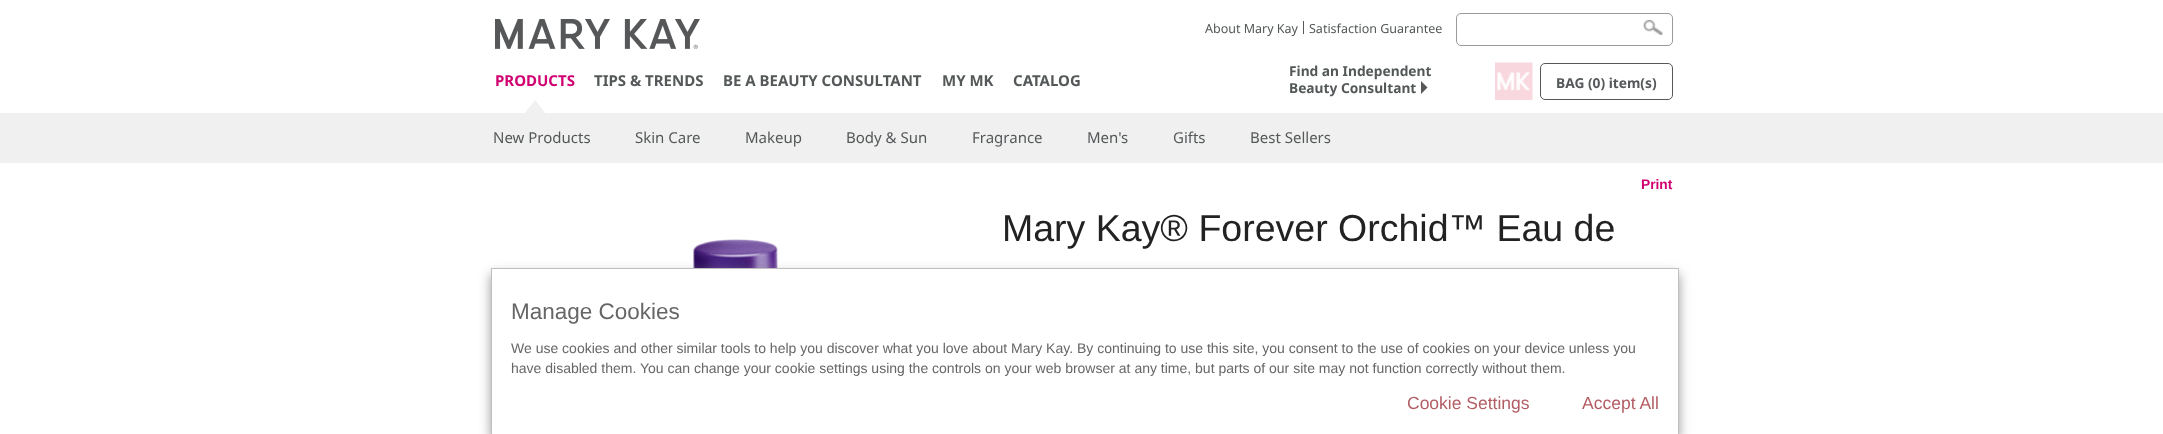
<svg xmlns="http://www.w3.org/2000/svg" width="2163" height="434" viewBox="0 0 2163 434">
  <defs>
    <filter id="blur1" x="-50%" y="-200%" width="200%" height="500%"><feGaussianBlur stdDeviation="6"/></filter>
  </defs>
  <rect width="100%" height="100%" fill="#ffffff"/>
  <text x="1205" y="33" font-family="Noto Sans" font-size="12.5" fill="#545859">About Mary Kay</text>
  <rect x="1303" y="21" width="1" height="13" fill="#545859"/>
  <text x="1309" y="33" font-family="Noto Sans" font-size="12.5" fill="#545859">Satisfaction Guarantee</text>
  <image x="1643" y="20" width="20" height="15" href="img1.png"/>
  <rect x="1456.5" y="13.5" width="216" height="32" rx="4.5" fill="#ffffff" fill-opacity="0.6" stroke="#989b9b"/>
  <image x="495" y="19" width="205" height="30" href="img2.png"/>
  <text x="495" y="86" font-family="Noto Sans" font-size="15" font-weight="bold" fill="#d00070">PRODUCTS</text>
  <rect x="0" y="113" width="2163" height="50" fill="#f0f0f0"/>
  <path d="M546 114H524L535 100Z" fill="#f0f0f0"/>
  <text x="594" y="86" font-family="Noto Sans" font-size="15" font-weight="bold" fill="#545859">TIPS &amp; TRENDS</text>
  <text x="723" y="86" font-family="Noto Sans" font-size="15" font-weight="bold" fill="#545859">BE A BEAUTY CONSULTANT</text>
  <text x="942" y="86" font-family="Noto Sans" font-size="15" font-weight="bold" fill="#545859">MY MK</text>
  <text x="1013" y="86" font-family="Noto Sans" font-size="15" font-weight="bold" fill="#545859">CATALOG</text>
  <text x="1289" y="76" font-family="Noto Sans" font-size="13.75" font-weight="bold" fill="#545859">Find an Independent</text>
  <text x="1289" y="93" font-family="Noto Sans" font-size="13.75" font-weight="bold" fill="#545859">Beauty Consultant</text>
  <path d="M1421 94V81L1427.5 87.5Z" fill="#555759"/>
  <image x="1495" y="62" width="38" height="38" href="img3.png"/>
  <rect x="1540.5" y="63.5" width="132" height="36" rx="4.5" fill="none" stroke="#545859"/>
  <text x="1556" y="88" font-family="Noto Sans" font-size="13.75" font-weight="bold" fill="#545859">BAG (0) item(s)</text>
  <text x="493" y="143" font-family="Noto Sans" font-size="15" fill="#545859">New Products</text>
  <text x="635" y="143" font-family="Noto Sans" font-size="15" fill="#545859">Skin Care</text>
  <text x="745" y="143" font-family="Noto Sans" font-size="15" fill="#545859">Makeup</text>
  <text x="846" y="143" font-family="Noto Sans" font-size="15" fill="#545859">Body &amp; Sun</text>
  <text x="972" y="143" font-family="Noto Sans" font-size="15" fill="#545859">Fragrance</text>
  <text x="1087" y="143" font-family="Noto Sans" font-size="15" fill="#545859">Men's</text>
  <text x="1173" y="143" font-family="Noto Sans" font-size="15" fill="#545859">Gifts</text>
  <text x="1250" y="143" font-family="Noto Sans" font-size="15" fill="#545859">Best Sellers</text>
  <text x="1641" y="189" font-family="Liberation Sans" font-size="13.75" font-weight="bold" fill="#d00070">Print</text>
  <text x="1002" y="241" font-family="Liberation Sans" font-size="37.5" fill="#222222">Mary Kay® Forever Orchid™ Eau de</text>
  <image x="693" y="239" width="86" height="29" href="img4.png"/>
  <rect x="491" y="274" width="1188" height="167" fill="#999999" filter="url(#blur1)"/>
  <rect x="491.5" y="268.5" width="1187" height="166" fill="#ffffff" stroke="#bfbfbf"/>
  <text x="511" y="319" font-family="Liberation Sans" font-size="22.5" fill="#666666">Manage Cookies</text>
  <text x="511" y="353" font-family="Liberation Sans" font-size="14" fill="#666666">We use cookies and other similar tools to help you discover what you love about Mary Kay. By continuing to use this site, you consent to the use of cookies on your device unless you</text>
  <text x="511" y="373" font-family="Liberation Sans" font-size="14" fill="#666666">have disabled them. You can change your cookie settings using the controls on your web browser at any time, but parts of our site may not function correctly without them.</text>
  <text x="1407" y="409" font-family="Liberation Sans" font-size="17.5" fill="#b25d64">Cookie Settings</text>
  <text x="1582" y="409" font-family="Liberation Sans" font-size="17.5" fill="#b25d64">Accept All</text>
</svg>
